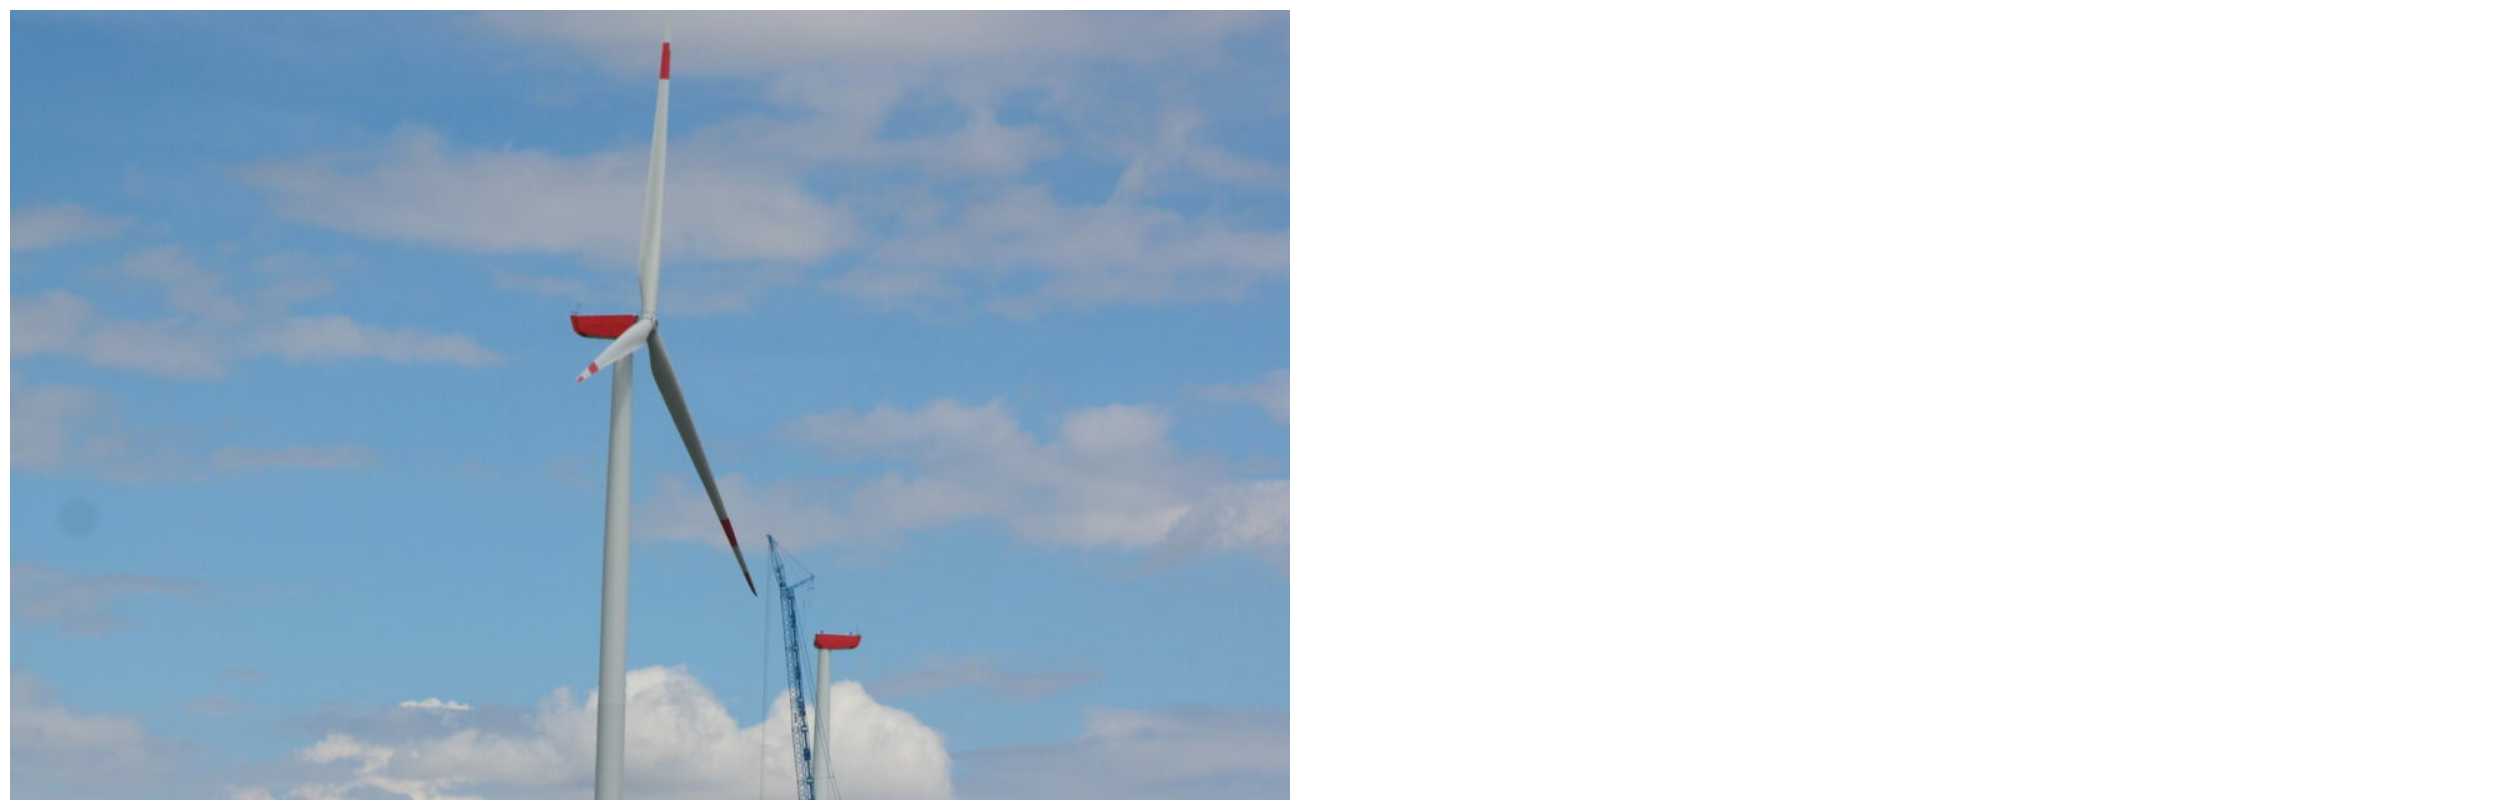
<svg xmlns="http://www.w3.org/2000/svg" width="2509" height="800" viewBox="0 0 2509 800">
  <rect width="100%" height="100%" fill="#ffffff"/>
  <image x="10" y="10" width="1280" height="790" href="img1.png"/>
</svg>
